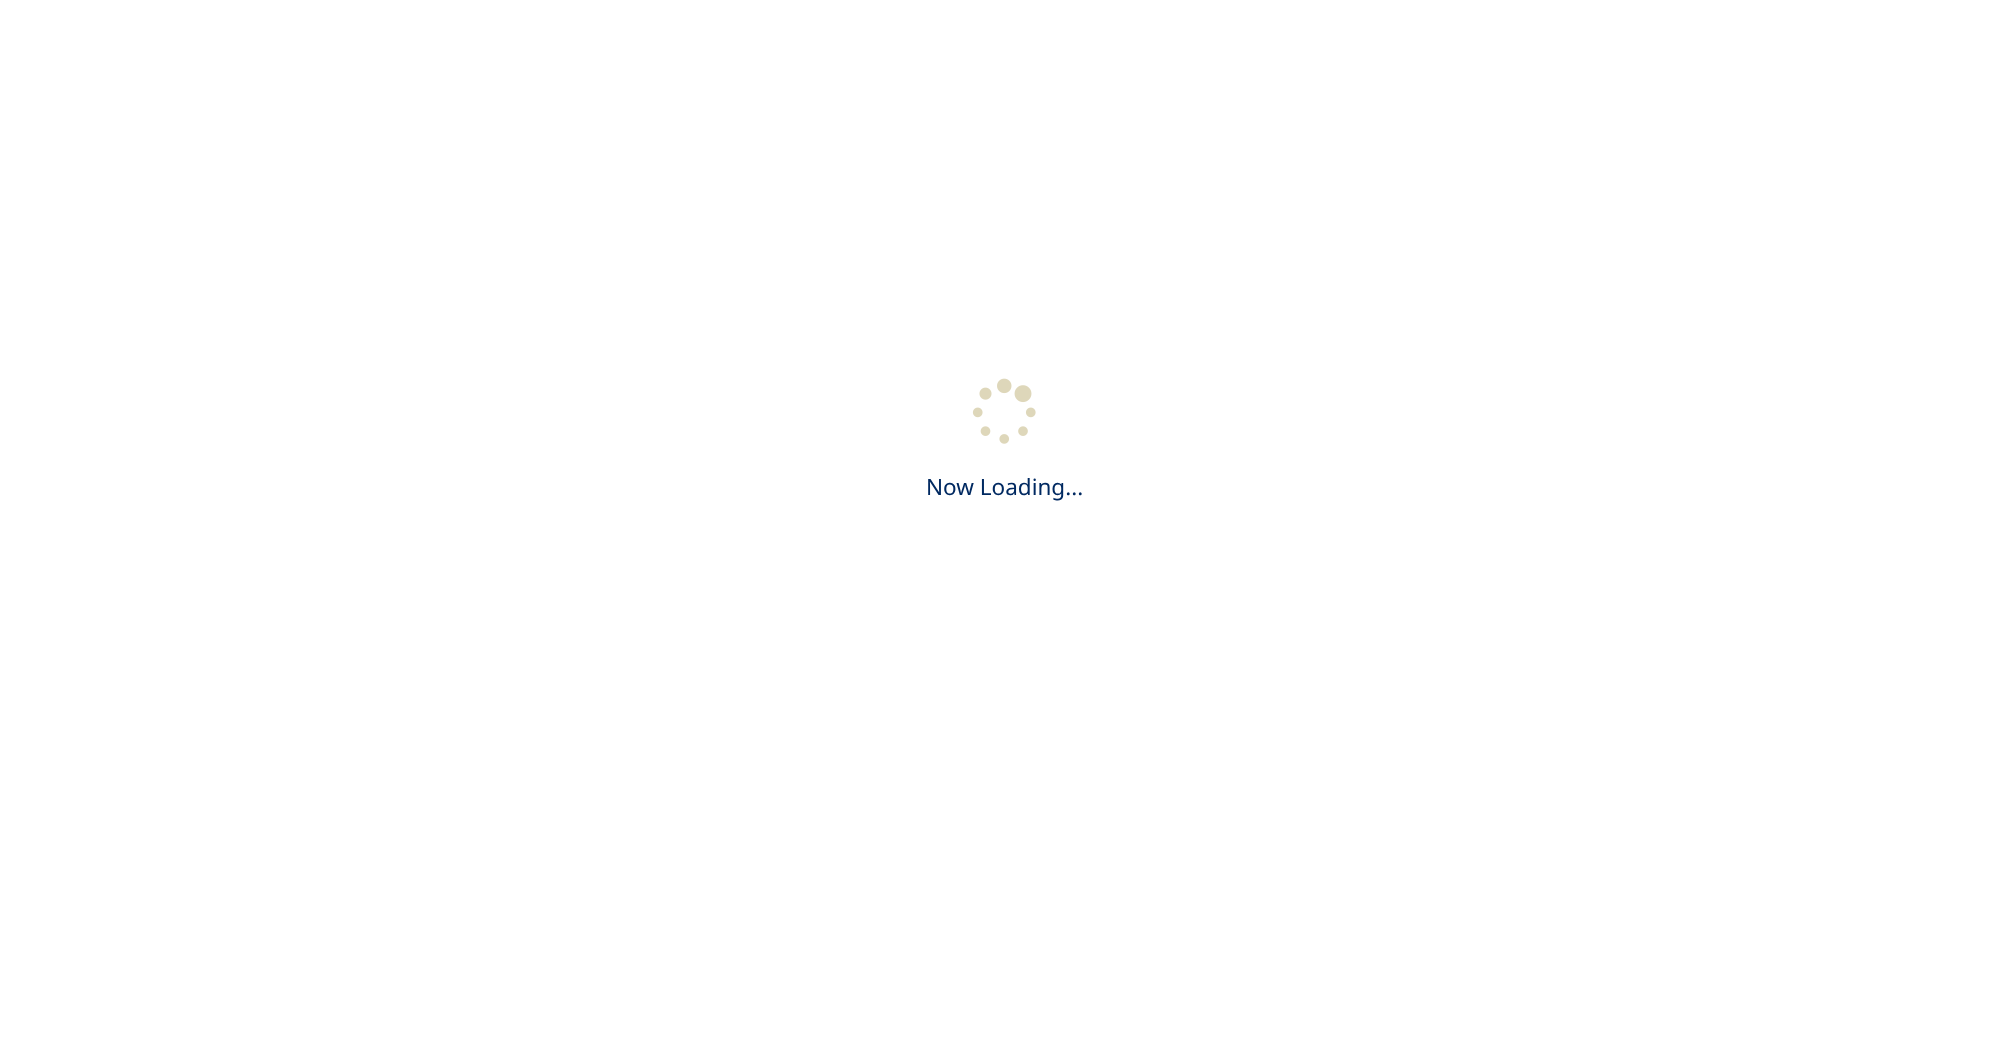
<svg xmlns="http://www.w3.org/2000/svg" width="2010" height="1059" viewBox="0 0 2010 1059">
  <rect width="100%" height="100%" fill="#ffffff"/>
  <image x="972" y="378" width="64" height="66" href="img1.png"/>
  <text x="926" y="495" font-family="Noto Sans" font-size="22.5" fill="#002961">Now Loading...</text>
</svg>
